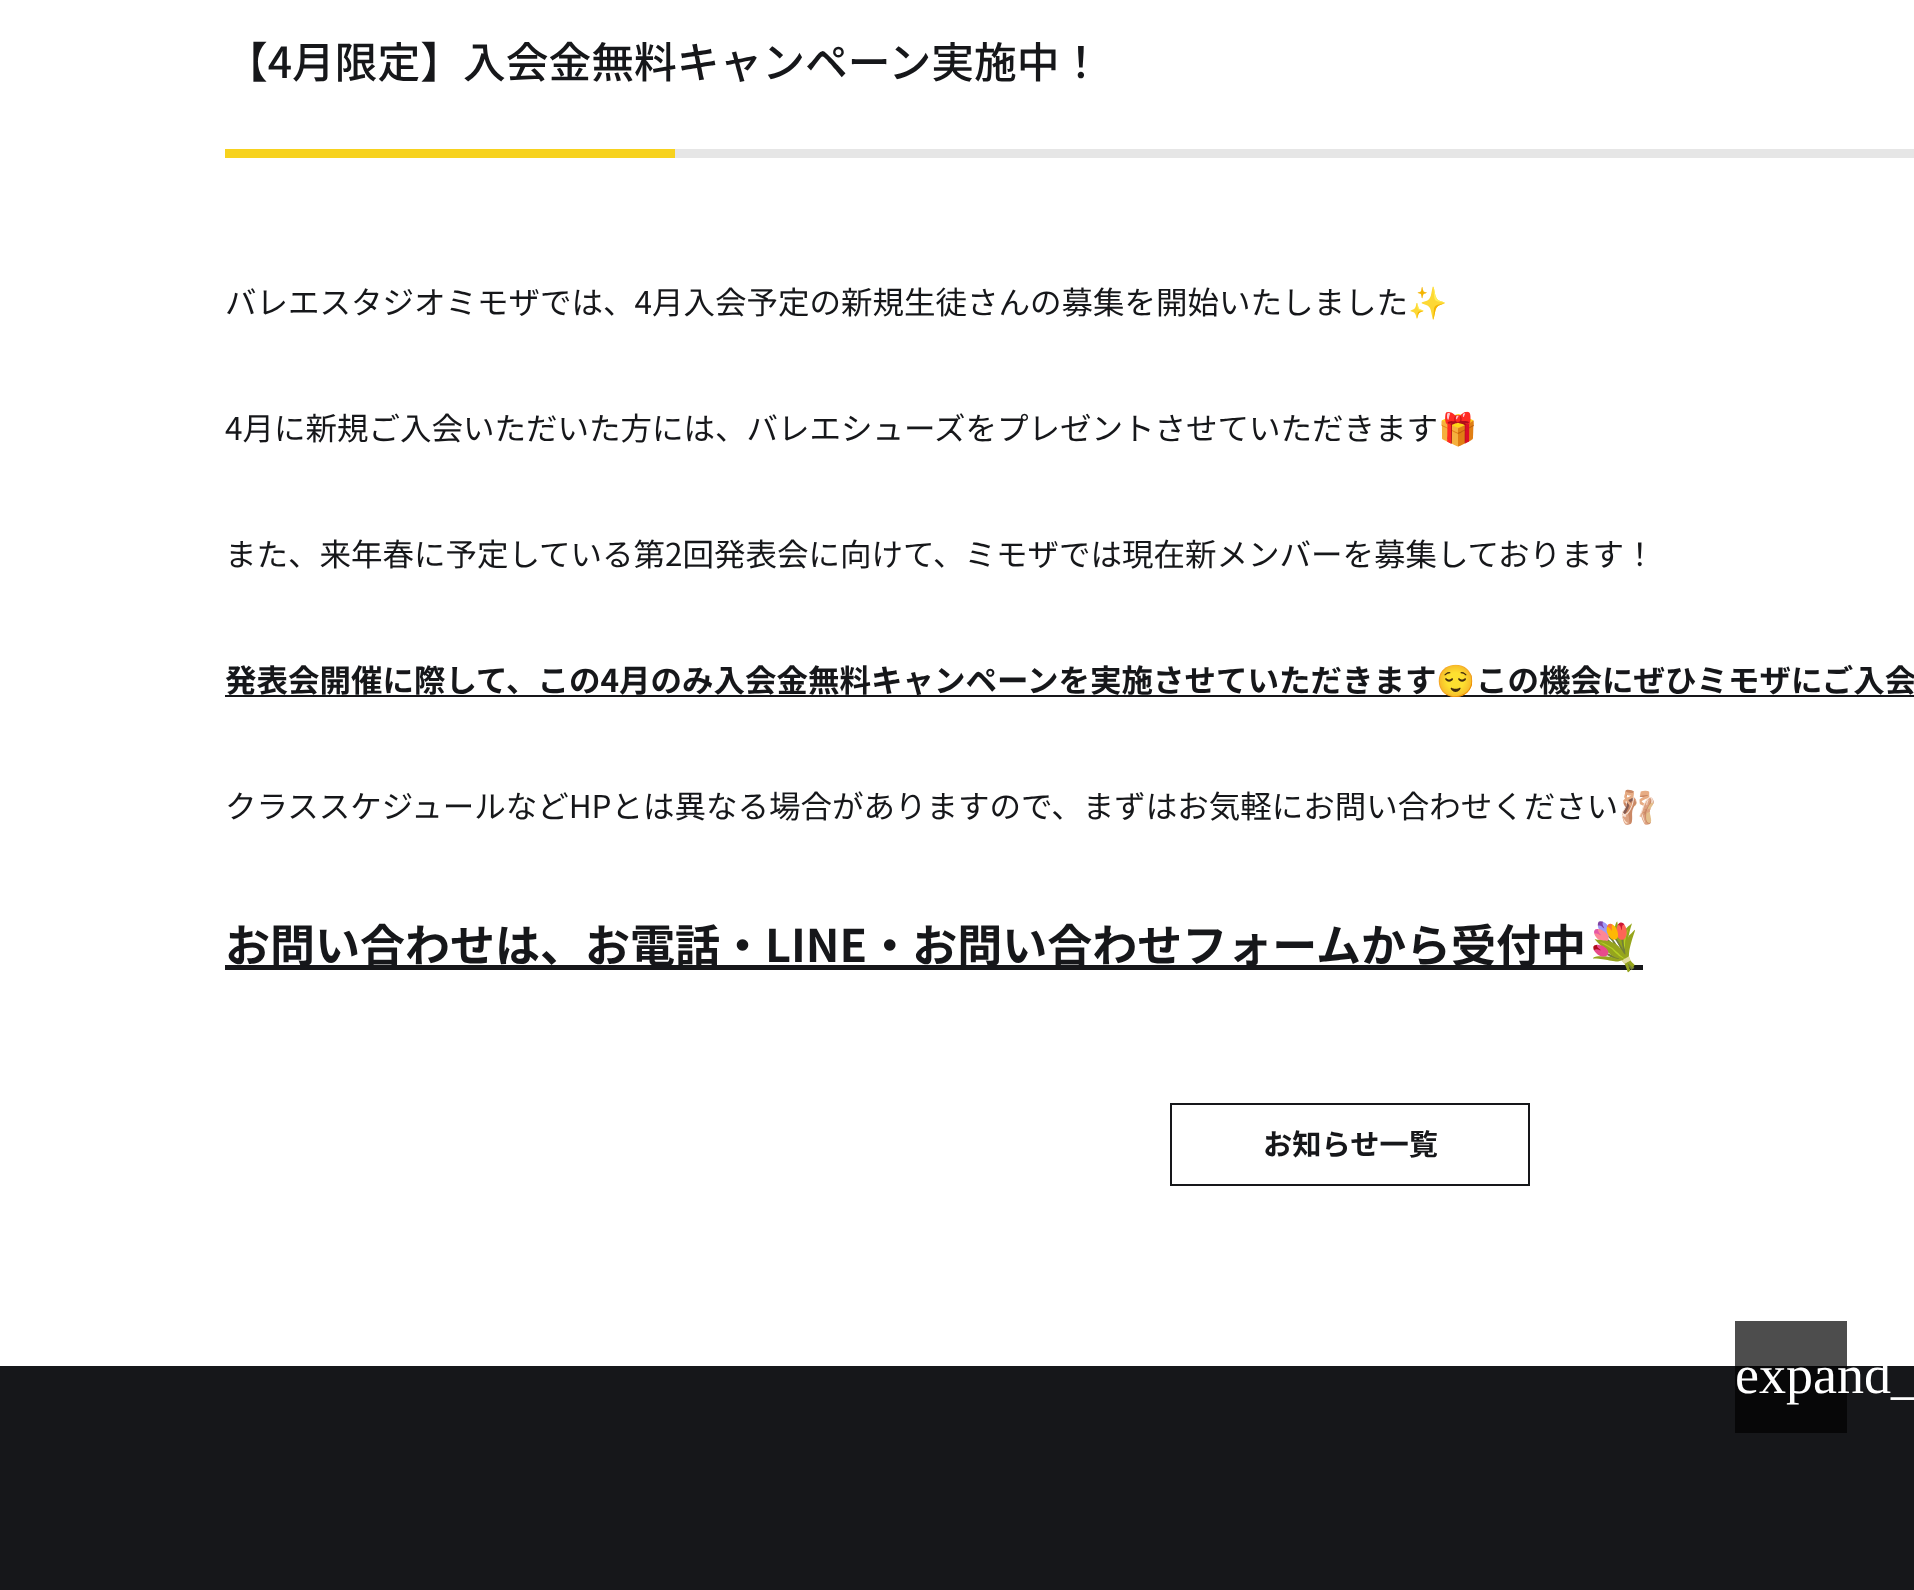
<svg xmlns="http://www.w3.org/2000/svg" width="1914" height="1590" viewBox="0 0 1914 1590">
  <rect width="100%" height="100%" fill="#ffffff"/>
  <rect x="1735" y="1321" width="112" height="45" fill="#4d4d4d"/>
  <rect x="675" y="149" width="1239" height="9" fill="#e6e6e6"/>
  <text x="225" y="78" font-family="Noto Sans JP" font-size="42.75" font-weight="500" fill="#16171a">【4月限定】入会金無料キャンペーン実施中！</text>
  <rect x="225" y="149" width="450" height="9" fill="#f7d21e"/>
  <text x="225" y="314" font-family="Noto Sans JP" font-size="31.5" fill="#16171a">バレエスタジオミモザでは、4月入会予定の新規生徒さんの募集を開始いたしました</text>
  <text x="1408" y="314" font-family="Noto Color Emoji" font-size="31.5" fill="#16171a">✨</text>
  <text x="225" y="440" font-family="Noto Sans JP" font-size="31.5" fill="#16171a">4月に新規ご入会いただいた方には、バレエシューズをプレゼントさせていただきます</text>
  <text x="1438" y="440" font-family="Noto Color Emoji" font-size="31.5" fill="#16171a">🎁</text>
  <text x="225" y="566" font-family="Noto Sans JP" font-size="31.5" fill="#16171a">また、来年春に予定している第2回発表会に向けて、ミモザでは現在新メンバーを募集しております！</text>
  <rect x="225" y="695" width="1689" height="2" fill="#16171a"/>
  <text x="225" y="692" font-family="Noto Sans JP" font-size="31.5" font-weight="bold" fill="#16171a">発表会開催に際して、この4月のみ入会金無料キャンペーンを実施させていただきます</text>
  <text x="1436" y="692" font-family="Noto Color Emoji" font-size="31.5" font-weight="bold" fill="#16171a">😌</text>
  <text x="1476" y="692" font-family="Noto Sans JP" font-size="31.5" font-weight="bold" fill="#16171a">この機会にぜひミモザにご入会</text>
  <text x="225" y="818" font-family="Noto Sans JP" font-size="31.5" fill="#16171a">クラススケジュールなどHPとは異なる場合がありますので、まずはお気軽にお問い合わせください</text>
  <text x="1618" y="818" font-family="Noto Color Emoji" font-size="31.5" fill="#16171a">🩰</text>
  <rect x="225" y="965" width="1418" height="5" fill="#16171a"/>
  <text x="225" y="962" font-family="Noto Sans JP" font-size="45" font-weight="bold" fill="#16171a">お問い合わせは、お電話・LINE・お問い合わせフォームから受付中</text>
  <text x="1586" y="962" font-family="'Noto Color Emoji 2'" font-size="45" font-weight="bold" fill="#16171a">💐</text>
  <rect x="1171" y="1104" width="358" height="81" fill="none" stroke="#16171a" stroke-width="2"/>
  <text x="1263" y="1155" font-family="Noto Sans JP" font-size="29.25" font-weight="bold" fill="#16171a">お知らせ一覧</text>
  <rect x="0" y="1366" width="1914" height="224" fill="#16171a"/>
  <rect x="1735" y="1366" width="112" height="67" fill="#070708"/>
  <text x="1735" y="1393" font-family="Liberation Serif" font-size="54" fill="#ffffff">expand_</text>
</svg>
